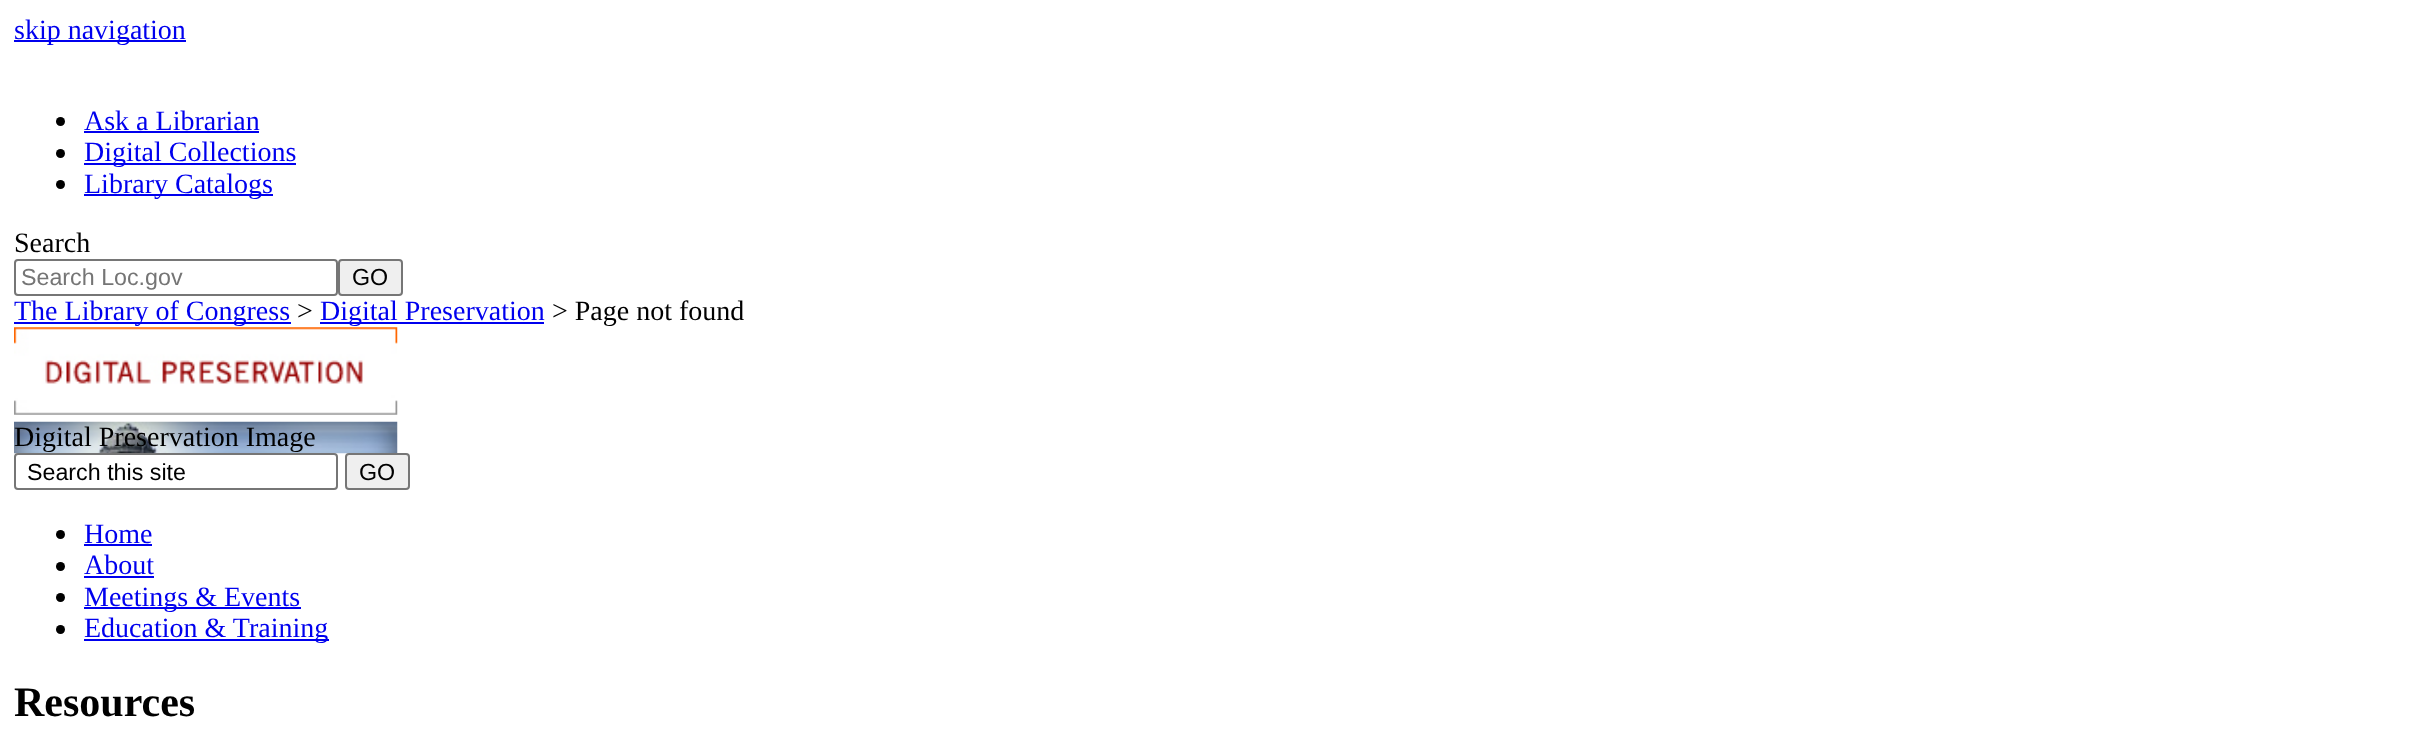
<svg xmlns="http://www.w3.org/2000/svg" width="2427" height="730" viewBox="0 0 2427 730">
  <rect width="100%" height="100%" fill="#ffffff"/>
  <rect x="14" y="40" width="172" height="2" fill="#0000ee"/>
  <text x="14" y="39" font-family="Liberation Serif" font-size="28" fill="#0000ee">skip navigation</text>
  <circle cx="60.5" cy="121.5" r="4.5" fill="#000000"/>
  <text x="84" y="130" font-family="Liberation Serif" font-size="28" fill="#0000ee">Ask a Librarian</text>
  <rect x="84" y="131" width="175" height="2" fill="#0000ee"/>
  <circle cx="60.5" cy="153.5" r="4.5" fill="#000000"/>
  <rect x="84" y="163" width="212" height="2" fill="#0000ee"/>
  <text x="84" y="161" font-family="Liberation Serif" font-size="28" fill="#0000ee">Digital Collections</text>
  <circle cx="60.5" cy="184.5" r="4.5" fill="#000000"/>
  <rect x="84" y="194" width="189" height="2" fill="#0000ee"/>
  <text x="84" y="193" font-family="Liberation Serif" font-size="28" fill="#0000ee">Library Catalogs</text>
  <text x="14" y="252" font-family="Liberation Serif" font-size="28" fill="#000000">Search</text>
  <rect x="15" y="260" width="322" height="35" rx="3" fill="none" stroke="#767676" stroke-width="2"/>
  <text x="21" y="285" font-family="Liberation Sans" font-size="23.25" fill="#757575">Search Loc.gov</text>
  <rect x="339" y="260" width="63" height="35" rx="3" fill="#efefef" stroke="#767676" stroke-width="2"/>
  <text x="352" y="285" font-family="Liberation Sans" font-size="23.25" fill="#000000">GO</text>
  <rect x="14" y="322" width="277" height="2" fill="#0000ee"/>
  <text x="14" y="320" font-family="Liberation Serif" font-size="28" fill="#0000ee">The Library of Congress</text>
  <text x="297" y="320" font-family="Liberation Serif" font-size="28" fill="#000000">&gt;</text>
  <rect x="320" y="322" width="224" height="2" fill="#0000ee"/>
  <text x="320" y="320" font-family="Liberation Serif" font-size="28" fill="#0000ee">Digital Preservation</text>
  <text x="552" y="320" font-family="Liberation Serif" font-size="28" fill="#000000">&gt; Page not found</text>
  <image x="14" y="327" width="384" height="88" href="img1.png"/>
  <image x="14" y="421" width="384" height="33" href="img2.png"/>
  <text x="14" y="446" font-family="Liberation Serif" font-size="28" fill="#000000">Digital Preservation Image</text>
  <rect x="15" y="454" width="322" height="35" rx="3" fill="#ffffff" stroke="#767676" stroke-width="2"/>
  <text x="27" y="480" font-family="Liberation Sans" font-size="23.25" fill="#000000">Search this site</text>
  <rect x="346" y="454" width="63" height="35" rx="3" fill="#efefef" stroke="#767676" stroke-width="2"/>
  <text x="359" y="480" font-family="Liberation Sans" font-size="23.25" fill="#000000">GO</text>
  <circle cx="60.5" cy="534.5" r="4.5" fill="#000000"/>
  <text x="84" y="543" font-family="Liberation Serif" font-size="28" fill="#0000ee">Home</text>
  <rect x="84" y="544" width="68" height="2" fill="#0000ee"/>
  <circle cx="60.5" cy="566.5" r="4.5" fill="#000000"/>
  <text x="84" y="574" font-family="Liberation Serif" font-size="28" fill="#0000ee">About</text>
  <rect x="84" y="576" width="70" height="2" fill="#0000ee"/>
  <circle cx="60.5" cy="597.5" r="4.5" fill="#000000"/>
  <rect x="84" y="607" width="217" height="2" fill="#0000ee"/>
  <text x="84" y="606" font-family="Liberation Serif" font-size="28" fill="#0000ee">Meetings &amp; Events</text>
  <circle cx="60.5" cy="629.5" r="4.5" fill="#000000"/>
  <rect x="84" y="639" width="245" height="2" fill="#0000ee"/>
  <text x="84" y="637" font-family="Liberation Serif" font-size="28" fill="#0000ee">Education &amp; Training</text>
  <text x="14" y="716" font-family="Liberation Serif" font-size="42" font-weight="bold" fill="#000000">Resources</text>
</svg>
